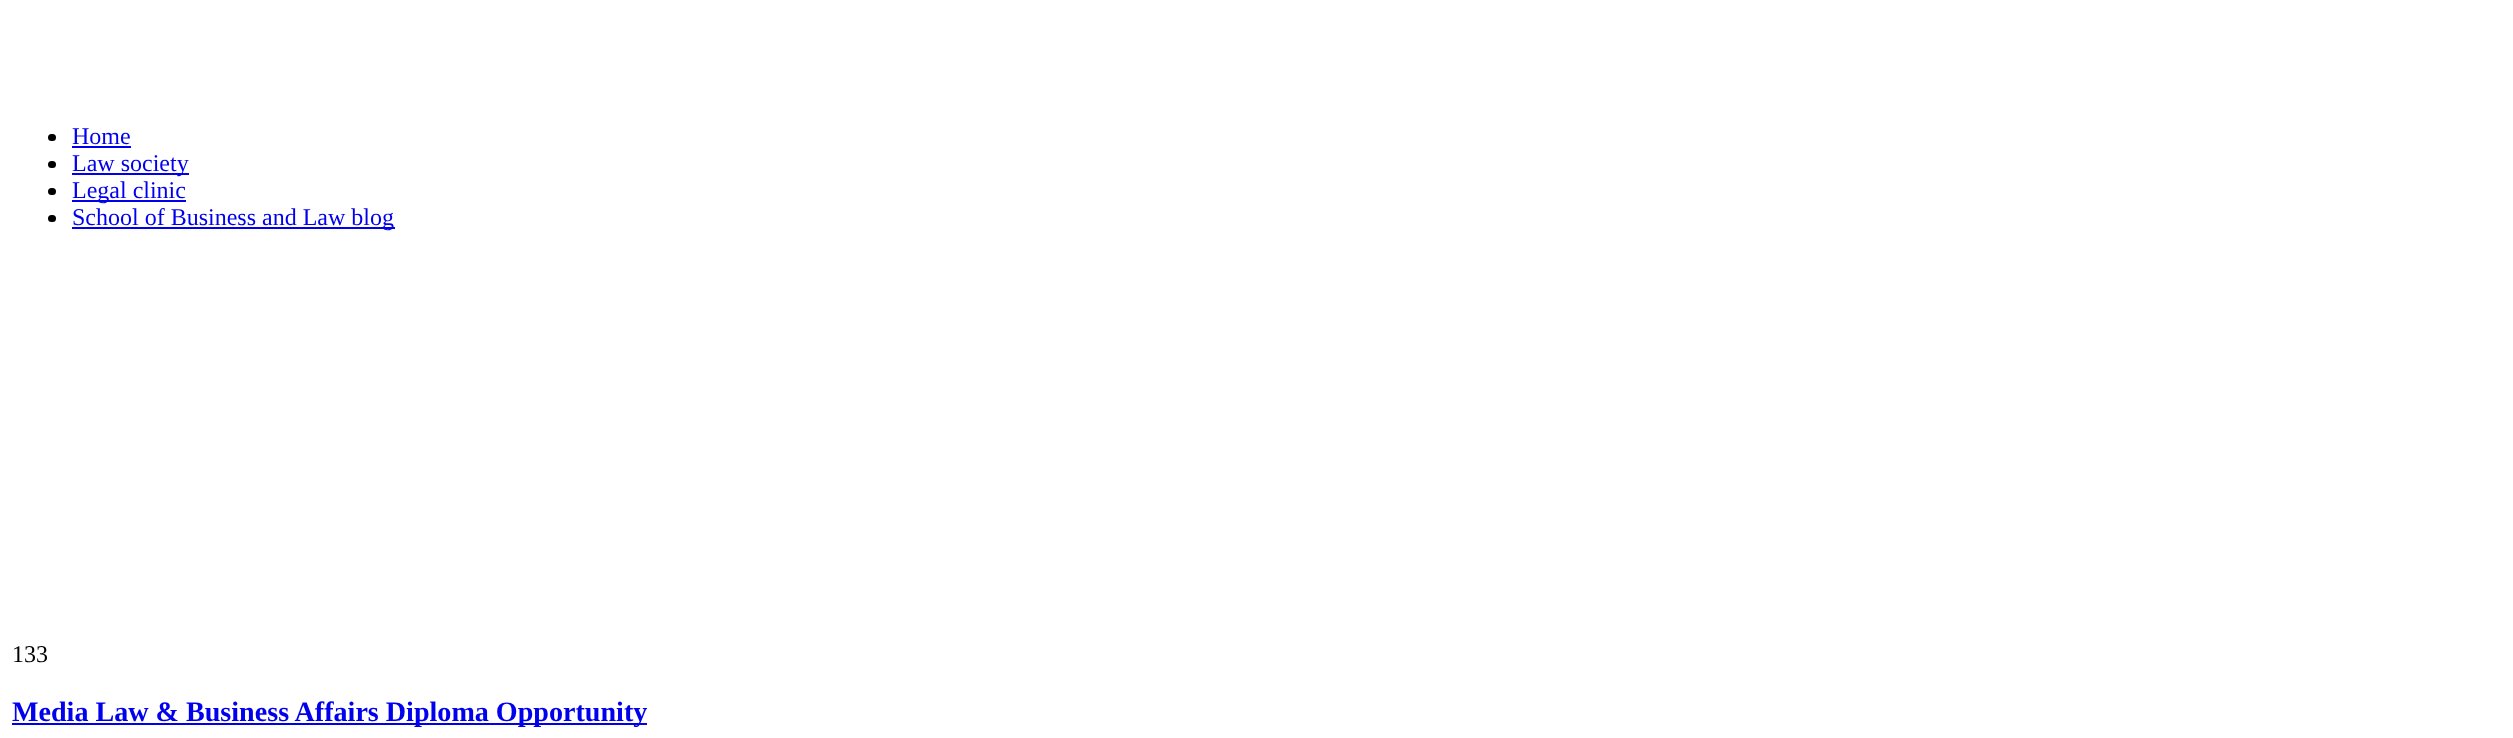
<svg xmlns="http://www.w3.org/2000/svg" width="2513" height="738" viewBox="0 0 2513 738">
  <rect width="100%" height="100%" fill="#ffffff"/>
  <rect x="48" y="134" width="8" height="7" rx="3.5" fill="#000000"/>
  <text x="72" y="144" font-family="Liberation Serif" font-size="24" fill="#0000ee">Home</text>
  <rect x="72" y="146" width="59" height="2" fill="#0000ee"/>
  <rect x="48" y="161" width="8" height="7" rx="3.5" fill="#000000"/>
  <rect x="72" y="173" width="117" height="2" fill="#0000ee"/>
  <text x="72" y="171" font-family="Liberation Serif" font-size="24" fill="#0000ee">Law society</text>
  <rect x="48" y="188" width="8" height="7" rx="3.5" fill="#000000"/>
  <rect x="72" y="200" width="114" height="2" fill="#0000ee"/>
  <text x="72" y="198" font-family="Liberation Serif" font-size="24" fill="#0000ee">Legal clinic</text>
  <rect x="48" y="215" width="8" height="7" rx="3.5" fill="#000000"/>
  <rect x="72" y="227" width="323" height="2" fill="#0000ee"/>
  <text x="72" y="225" font-family="Liberation Serif" font-size="24" fill="#0000ee">School of Business and Law blog</text>
  <text x="12" y="662" font-family="Liberation Serif" font-size="24" fill="#000000">133</text>
  <rect x="12" y="723" width="635" height="2" fill="#0000ee"/>
  <text x="12" y="721" font-family="Liberation Serif" font-size="28.1" font-weight="bold" fill="#0000ee">Media Law &amp; Business Affairs Diploma Opportunity</text>
</svg>
